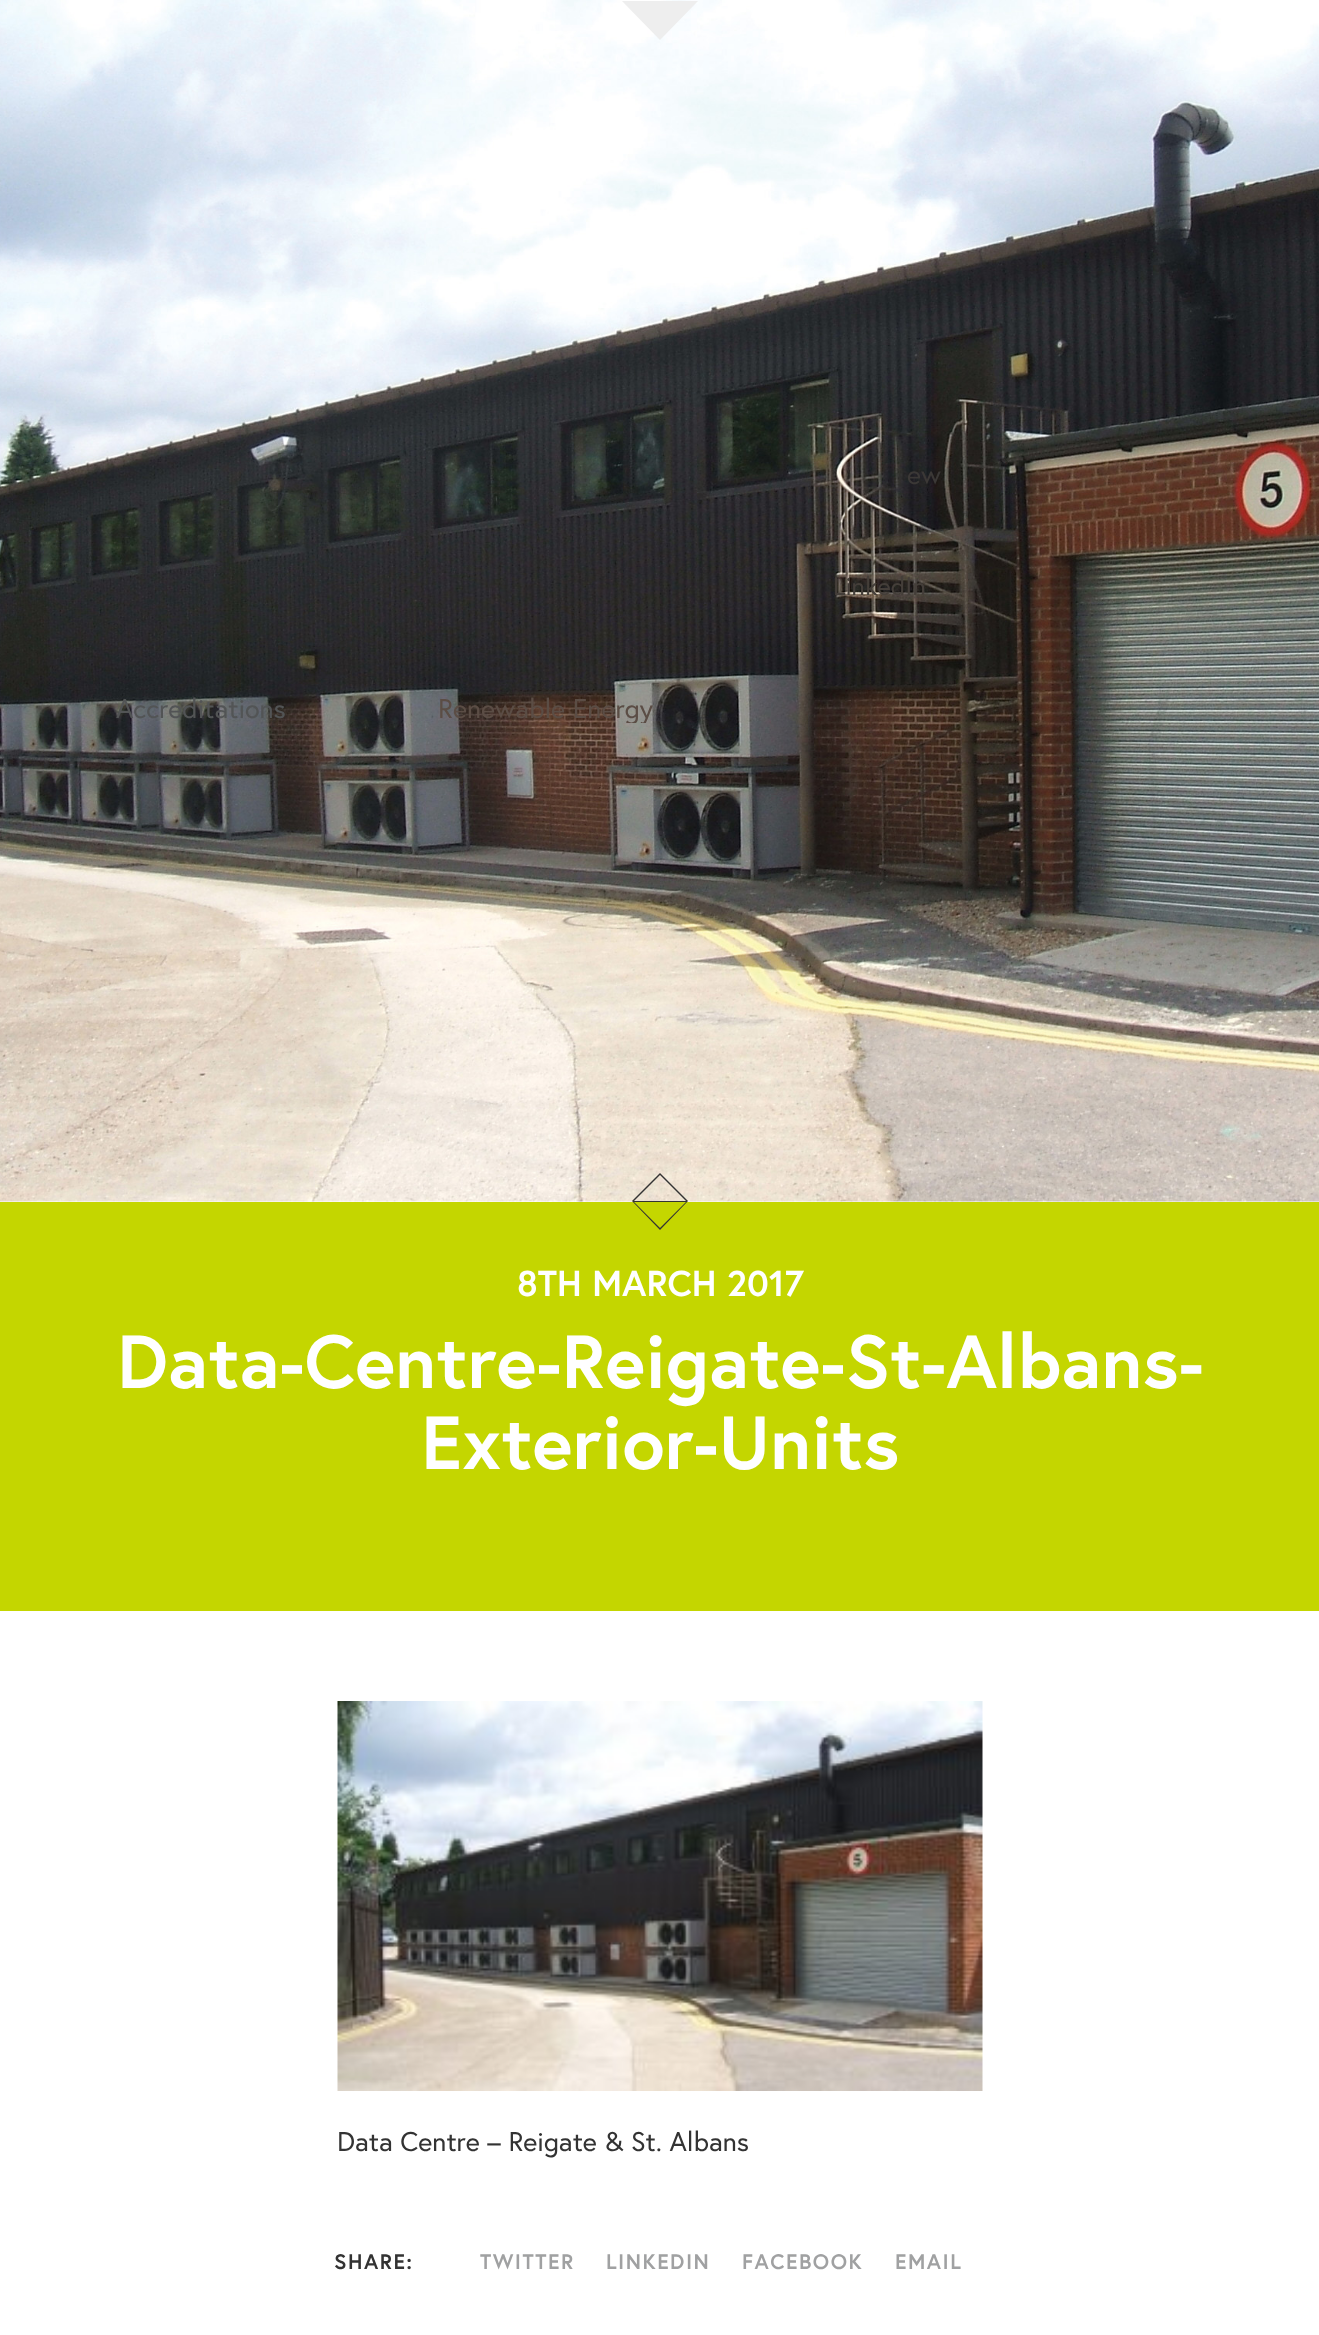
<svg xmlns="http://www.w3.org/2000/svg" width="1319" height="2335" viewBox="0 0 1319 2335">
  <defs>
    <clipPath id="clip1"><rect x="438" y="690" width="216" height="33"/></clipPath>
  </defs>
  <rect width="100%" height="100%" fill="#ffffff"/>
  <image x="0" y="0" width="1319" height="1202" href="img1.png"/>
  <rect x="0" y="1202" width="1319" height="409" fill="#c4d600"/>
  <path d="M660 1173L632 1201L660 1230L688 1201ZM686 1201H634L660 1175ZM634 1202H686L660 1228Z" fill="#333333"/>
  <path d="M622 1H698L660 40Z" fill="#eeeeee"/>
  <text x="907" y="484" font-family="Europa" font-size="27" fill="#3b3836">ew</text>
  <text x="833" y="595" font-family="Europa" font-size="25.5" fill="#443e39">LinkedIn</text>
  <text x="116" y="718" font-family="Europa" font-size="27" fill="#525455">Accreditations</text>
  <g clip-path="url(#clip1)">
    <text x="438" y="718" font-family="Europa" font-size="27" fill="#5b4d45">Renewable Energy</text>
  </g>
  <text x="517" y="1296" font-family="Europa" font-size="36" font-weight="bold" fill="#ffffff">8TH MARCH 2017</text>
  <text x="117" y="1388" font-family="Europa" font-size="75" font-weight="bold" fill="#ffffff">Data-Centre-Reigate-St-Albans-</text>
  <text x="421" y="1469" font-family="Europa" font-size="75" font-weight="bold" fill="#ffffff">Exterior-Units</text>
  <image x="337" y="1701" width="646" height="390" href="img2.png"/>
  <text x="337" y="2151" font-family="Europa" font-size="27" fill="#333333">Data Centre – Reigate &amp; St. Albans</text>
  <text x="334" y="2269" font-family="Europa" font-size="21" font-weight="bold" letter-spacing="1.5" fill="#333333">SHARE:</text>
  <text x="480" y="2269" font-family="Europa" font-size="21" font-weight="bold" letter-spacing="1.5" fill="#a0a1a2">TWITTER</text>
  <text x="606" y="2269" font-family="Europa" font-size="21" font-weight="bold" letter-spacing="1.5" fill="#a0a1a2">LINKEDIN</text>
  <text x="742" y="2269" font-family="Europa" font-size="21" font-weight="bold" letter-spacing="1.5" fill="#a0a1a2">FACEBOOK</text>
  <text x="895" y="2269" font-family="Europa" font-size="21" font-weight="bold" letter-spacing="1.5" fill="#a0a1a2">EMAIL</text>
</svg>
